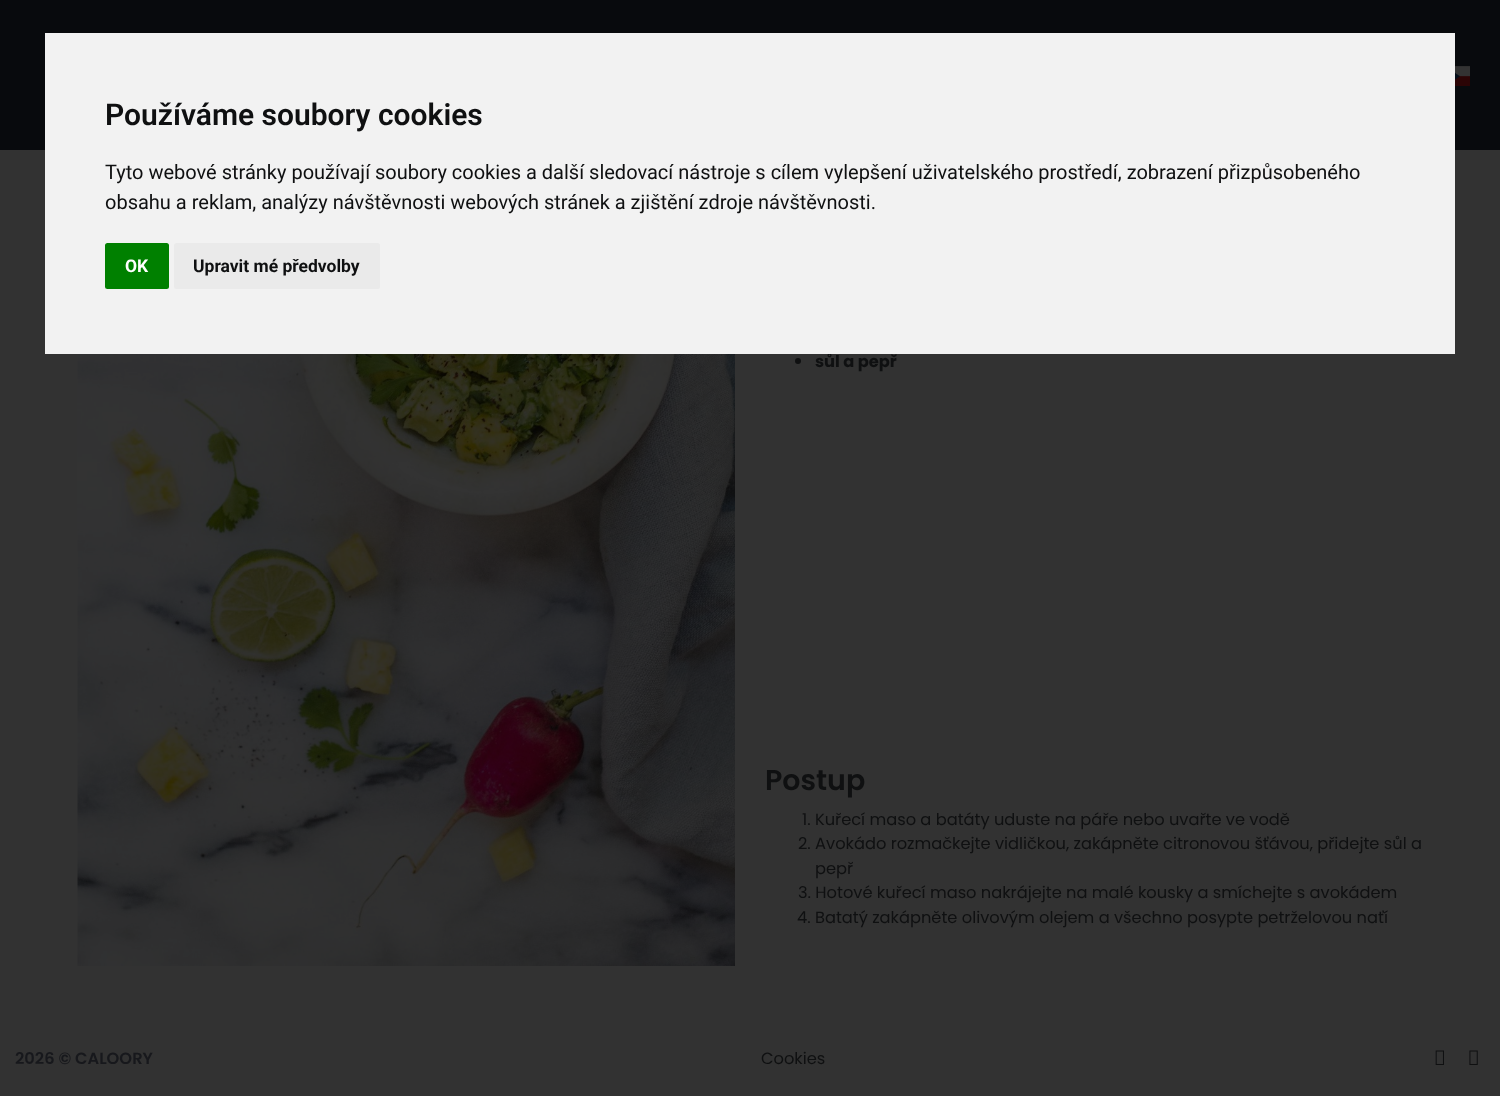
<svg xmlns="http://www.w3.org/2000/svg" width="1500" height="1096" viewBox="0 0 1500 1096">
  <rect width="100%" height="100%" fill="#323232"/>
  <rect x="0" y="0" width="1500" height="150" fill="#080a0d"/>
  <text x="815" y="367" font-family="Poppins" font-size="16.25" font-weight="bold" fill="#0f1011">sůl a pepř</text>
  <rect x="45" y="33" width="1410" height="321" fill="#f2f2f2"/>
  <text x="105" y="125" font-family="Roboto" font-size="30" font-weight="600" fill="#0f1011">Používáme soubory cookies</text>
  <text x="105" y="179" font-family="Roboto" font-size="20" fill="#0f1011">Tyto webové stránky používají soubory cookies a další sledovací nástroje s cílem vylepšení uživatelského prostředí, zobrazení přizpůsobeného</text>
  <text x="105" y="209" font-family="Roboto" font-size="20" fill="#0f1011">obsahu a reklam, analýzy návštěvnosti webových stránek a zjištění zdroje návštěvnosti.</text>
  <rect x="105" y="243" width="64" height="46" rx="2.5" fill="#008000"/>
  <text x="125" y="272" font-family="Roboto" font-size="17.5" font-weight="bold" fill="#ffffff">OK</text>
  <rect x="174" y="243" width="206" height="46" rx="2.5" fill="#eaeaea"/>
  <text x="193" y="272" font-family="Roboto" font-size="17.5" font-weight="bold" fill="#0f1011">Upravit mé předvolby</text>
  <image x="1455" y="66" width="15" height="20" href="img1.png"/>
  <image x="77" y="354" width="658" height="612" href="img2.png"/>
  <circle cx="798" cy="361" r="3" fill="#0f1011"/>
  <text x="765" y="790" font-family="Poppins" font-size="28.5" font-weight="600" fill="#0f1011">Postup</text>
  <text x="802" y="825" font-family="Poppins" font-size="16.25" fill="#0f1011">1. Kuřecí maso a batáty uduste na páře nebo uvařte ve vodě</text>
  <text x="798" y="849" font-family="Poppins" font-size="16.25" fill="#0f1011">2. Avokádo rozmačkejte vidličkou, zakápněte citronovou šťávou, přidejte sůl a</text>
  <text x="815" y="874" font-family="Poppins" font-size="16.25" fill="#0f1011">pepř</text>
  <text x="798" y="898" font-family="Poppins" font-size="16.25" fill="#0f1011">3. Hotové kuřecí maso nakrájejte na malé kousky a smíchejte s avokádem</text>
  <text x="797" y="923" font-family="Poppins" font-size="16.25" fill="#0f1011">4. Batatý zakápněte olivovým olejem a všechno posypte petrželovou naťí</text>
  <text x="15" y="1064" font-family="Poppins" font-size="16.25" font-weight="600" fill="#17181c">2026 © CALOORY</text>
  <text x="761" y="1064" font-family="Poppins" font-size="16.25" fill="#0f1011">Cookies</text>
  <image x="1435" y="1050" width="9" height="15" href="img3.png"/>
  <image x="1469" y="1050" width="9" height="15" href="img4.png"/>
</svg>
